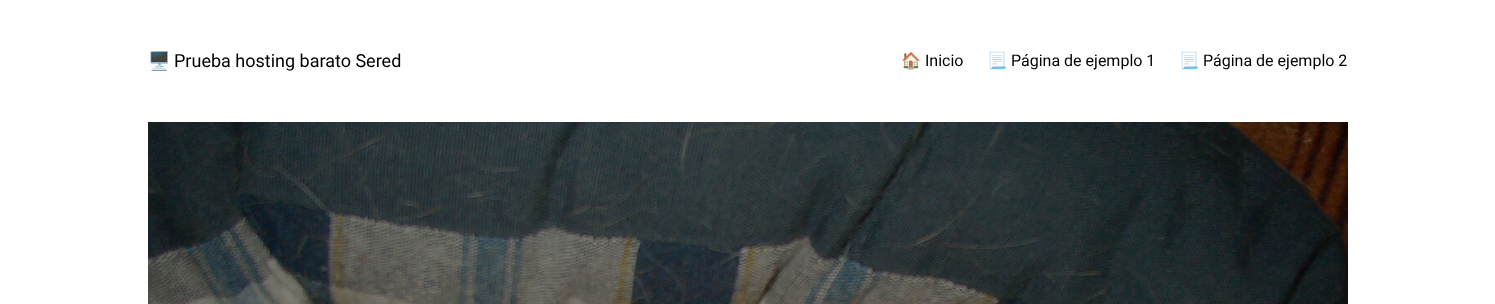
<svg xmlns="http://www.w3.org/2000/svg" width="1495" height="304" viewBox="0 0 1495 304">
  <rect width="100%" height="100%" fill="#ffffff"/>
  <text x="148" y="67" font-family="Noto Color Emoji" font-size="18" fill="#000000">🖥️</text>
  <text x="174" y="67" font-family="Roboto" font-size="18" fill="#000000">Prueba hosting barato Sered</text>
  <text x="901" y="66" font-family="Noto Color Emoji" font-size="16" fill="#000000">🏠</text>
  <text x="925" y="66" font-family="Roboto" font-size="16" fill="#000000">Inicio</text>
  <text x="987" y="66" font-family="Noto Color Emoji" font-size="16" fill="#000000">📃</text>
  <text x="1011" y="66" font-family="Roboto" font-size="16" fill="#000000">Página de ejemplo 1</text>
  <text x="1179" y="66" font-family="Noto Color Emoji" font-size="16" fill="#000000">📃</text>
  <text x="1203" y="66" font-family="Roboto" font-size="16" fill="#000000">Página de ejemplo 2</text>
  <image x="148" y="122" width="1200" height="182" href="img1.png"/>
</svg>
